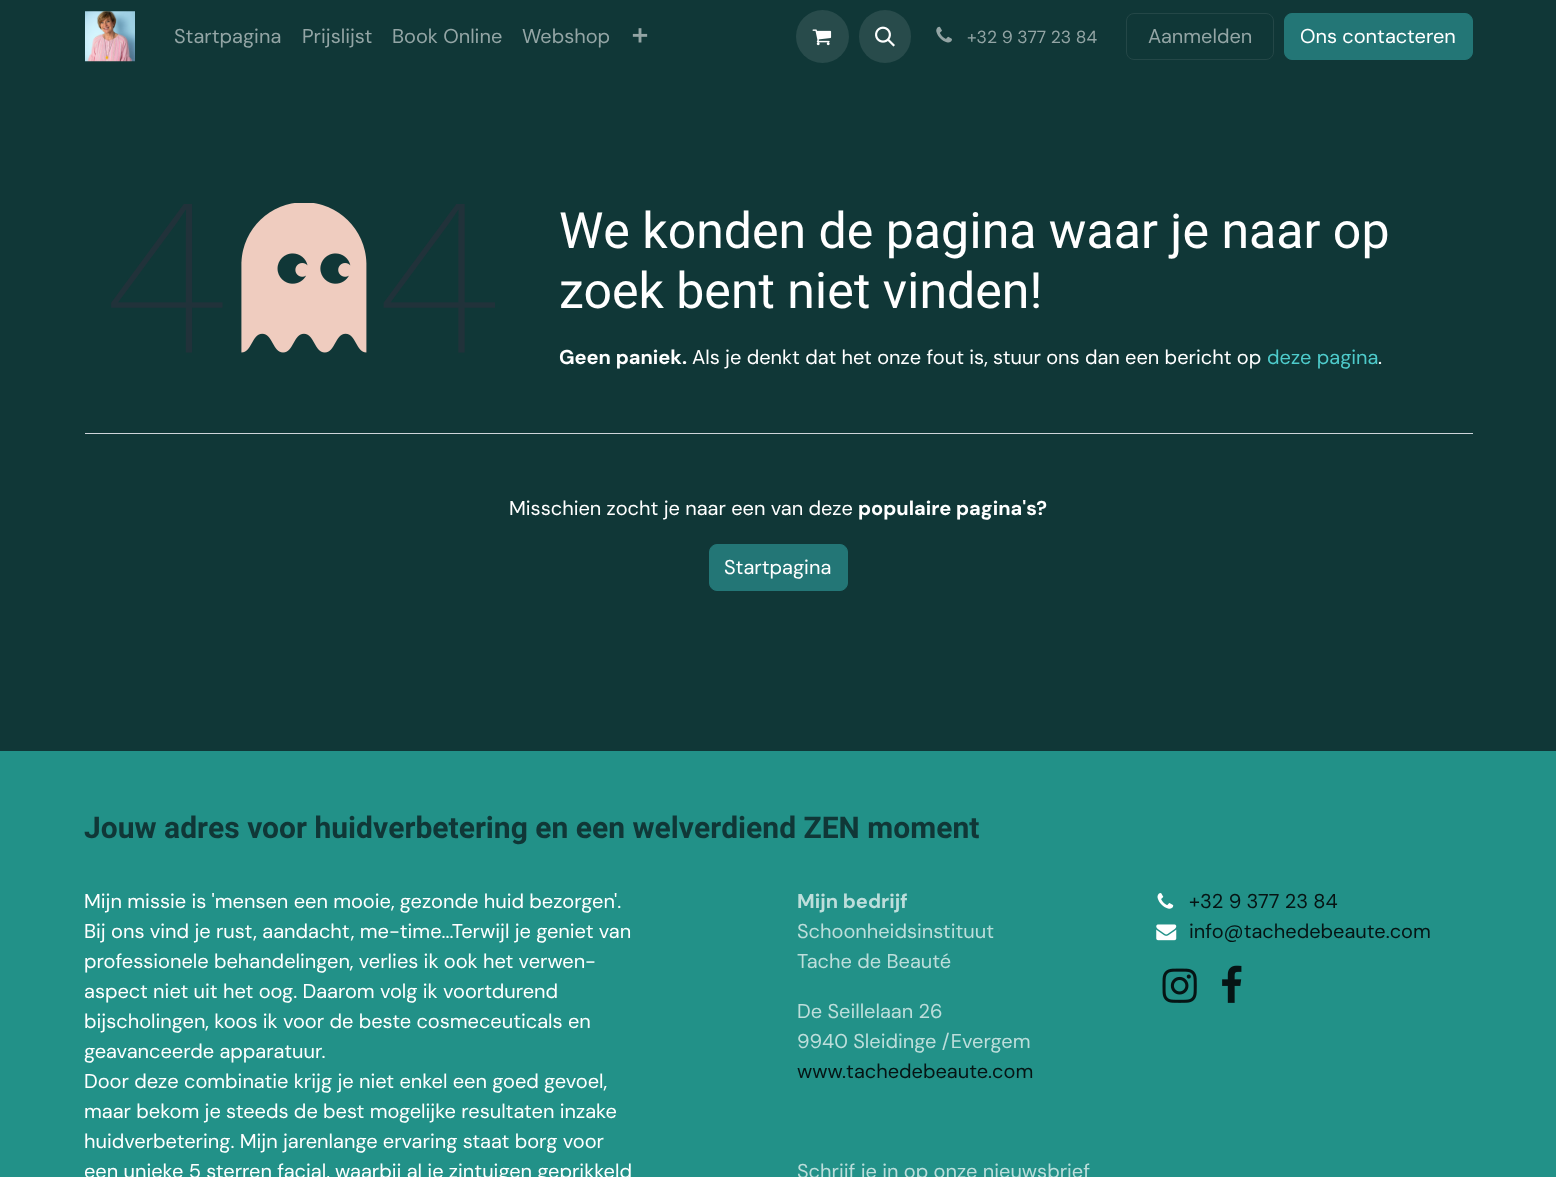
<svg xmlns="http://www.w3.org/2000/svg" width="1556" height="1177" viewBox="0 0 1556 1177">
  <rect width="100%" height="100%" fill="#103737"/>
  <image x="85" y="11" width="50" height="51" href="img1.png"/>
  <text x="174" y="43" font-family="DM Sans" font-size="20" fill="#93a5a5">Startpagina</text>
  <text x="302" y="43" font-family="DM Sans" font-size="20" fill="#93a5a5">Prijslijst</text>
  <text x="392" y="43" font-family="DM Sans" font-size="20" fill="#93a5a5">Book Online</text>
  <text x="522" y="43" font-family="DM Sans" font-size="20" fill="#93a5a5">Webshop</text>
  <image x="632" y="28" width="16" height="15" href="img2.png"/>
  <circle cx="822.5" cy="36.5" r="26.5" fill="#284b4b"/>
  <image x="812" y="29" width="20" height="17" href="img3.png"/>
  <rect x="859" y="10" width="52" height="53" rx="26" fill="#284b4b"/>
  <image x="875" y="26" width="20" height="21" href="img4.png"/>
  <image x="936" y="26" width="16" height="17" href="img5.png"/>
  <text x="967" y="43" font-family="DM Sans" font-size="17.5" fill="#93a5a5">+32 9 377 23 84</text>
  <rect x="1126.5" y="13.5" width="147" height="46" rx="7.5" fill="none" stroke="#244747"/>
  <text x="1148" y="43" font-family="DM Sans" font-size="20" fill="#93a5a5">Aanmelden</text>
  <rect x="1284.5" y="13.5" width="188" height="46" rx="7.5" fill="#237676" stroke="#237676"/>
  <text x="1300" y="43" font-family="DM Sans" font-size="20" fill="#ffffff">Ons contacteren</text>
  <image x="111" y="203" width="384" height="150" href="img6.png"/>
  <text x="559" y="248" font-family="Heebo" font-size="50" fill="#ffffff">We konden de pagina waar je naar op</text>
  <text x="559" y="308" font-family="Heebo" font-size="50" fill="#ffffff">zoek bent niet vinden!</text>
  <text x="559" y="364" font-family="DM Sans" font-size="20" font-weight="bold" fill="#ffffff">Geen paniek.</text>
  <text x="692" y="364" font-family="DM Sans" font-size="20" fill="#ffffff">Als je denkt dat het onze fout is, stuur ons dan een bericht op</text>
  <text x="1267" y="364" font-family="DM Sans" font-size="20" fill="#4ecbcb">deze pagina</text>
  <text x="1378" y="364" font-family="DM Sans" font-size="20" fill="#ffffff">.</text>
  <rect x="85" y="433" width="1388" height="1" fill="#ced4da"/>
  <text x="509" y="515" font-family="DM Sans" font-size="20" fill="#ffffff">Misschien zocht je naar een van deze</text>
  <text x="858" y="515" font-family="DM Sans" font-size="20" font-weight="bold" fill="#ffffff">populaire pagina's?</text>
  <rect x="709.5" y="544.5" width="138" height="46" rx="7.5" fill="#237676" stroke="#237676"/>
  <text x="724" y="574" font-family="DM Sans" font-size="20" fill="#ffffff">Startpagina</text>
  <rect x="0" y="751" width="1556" height="426" fill="#229188"/>
  <text x="84" y="838" font-family="Heebo" font-size="30" font-weight="bold" fill="#103737">Jouw adres voor huidverbetering en een welverdiend ZEN moment</text>
  <text x="84" y="908" font-family="DM Sans" font-size="20" fill="#ffffff">Mijn missie is 'mensen een mooie, gezonde huid bezorgen'.</text>
  <text x="84" y="938" font-family="DM Sans" font-size="20" fill="#ffffff">Bij ons vind je rust, aandacht, me-time...Terwijl je geniet van</text>
  <text x="84" y="968" font-family="DM Sans" font-size="20" fill="#ffffff">professionele behandelingen, verlies ik ook het verwen-</text>
  <text x="84" y="998" font-family="DM Sans" font-size="20" fill="#ffffff">aspect niet uit het oog. Daarom volg ik voortdurend</text>
  <text x="84" y="1028" font-family="DM Sans" font-size="20" fill="#ffffff">bijscholingen, koos ik voor de beste cosmeceuticals en</text>
  <text x="84" y="1058" font-family="DM Sans" font-size="20" fill="#ffffff">geavanceerde apparatuur.</text>
  <text x="84" y="1088" font-family="DM Sans" font-size="20" fill="#ffffff">Door deze combinatie krijg je niet enkel een goed gevoel,</text>
  <text x="84" y="1118" font-family="DM Sans" font-size="20" fill="#ffffff">maar bekom je steeds de best mogelijke resultaten inzake</text>
  <text x="84" y="1148" font-family="DM Sans" font-size="20" fill="#ffffff">huidverbetering. Mijn jarenlange ervaring staat borg voor</text>
  <text x="84" y="1178" font-family="DM Sans" font-size="20" fill="#ffffff">een unieke 5 sterren facial, waarbij al je zintuigen geprikkeld</text>
  <text x="797" y="908" font-family="DM Sans" font-size="20" font-weight="bold" fill="#bddedb">Mijn bedrijf</text>
  <text x="797" y="938" font-family="DM Sans" font-size="20" fill="#bddedb">Schoonheidsinstituut</text>
  <text x="797" y="968" font-family="DM Sans" font-size="20" fill="#bddedb">Tache de Beauté</text>
  <text x="797" y="1018" font-family="DM Sans" font-size="20" fill="#bddedb">De Seillelaan 26</text>
  <text x="797" y="1048" font-family="DM Sans" font-size="20" fill="#bddedb">9940 Sleidinge /Evergem</text>
  <text x="797" y="1078" font-family="DM Sans" font-size="20" fill="#061414">www.tachedebeaute.com</text>
  <text x="797" y="1178" font-family="DM Sans" font-size="20" fill="#bddedb">Schrijf je in op onze nieuwsbrief</text>
  <image x="1157" y="893" width="17" height="16" href="img7.png"/>
  <text x="1189" y="908" font-family="DM Sans" font-size="20" fill="#061414">+32 9 377 23 84</text>
  <image x="1156" y="924" width="21" height="17" href="img8.png"/>
  <text x="1189" y="938" font-family="DM Sans" font-size="20" fill="#061414">info@tachedebeaute.com</text>
  <image x="1162" y="968" width="35" height="35" href="img9.png"/>
  <image x="1222" y="965" width="20" height="38" href="img10.png"/>
</svg>
